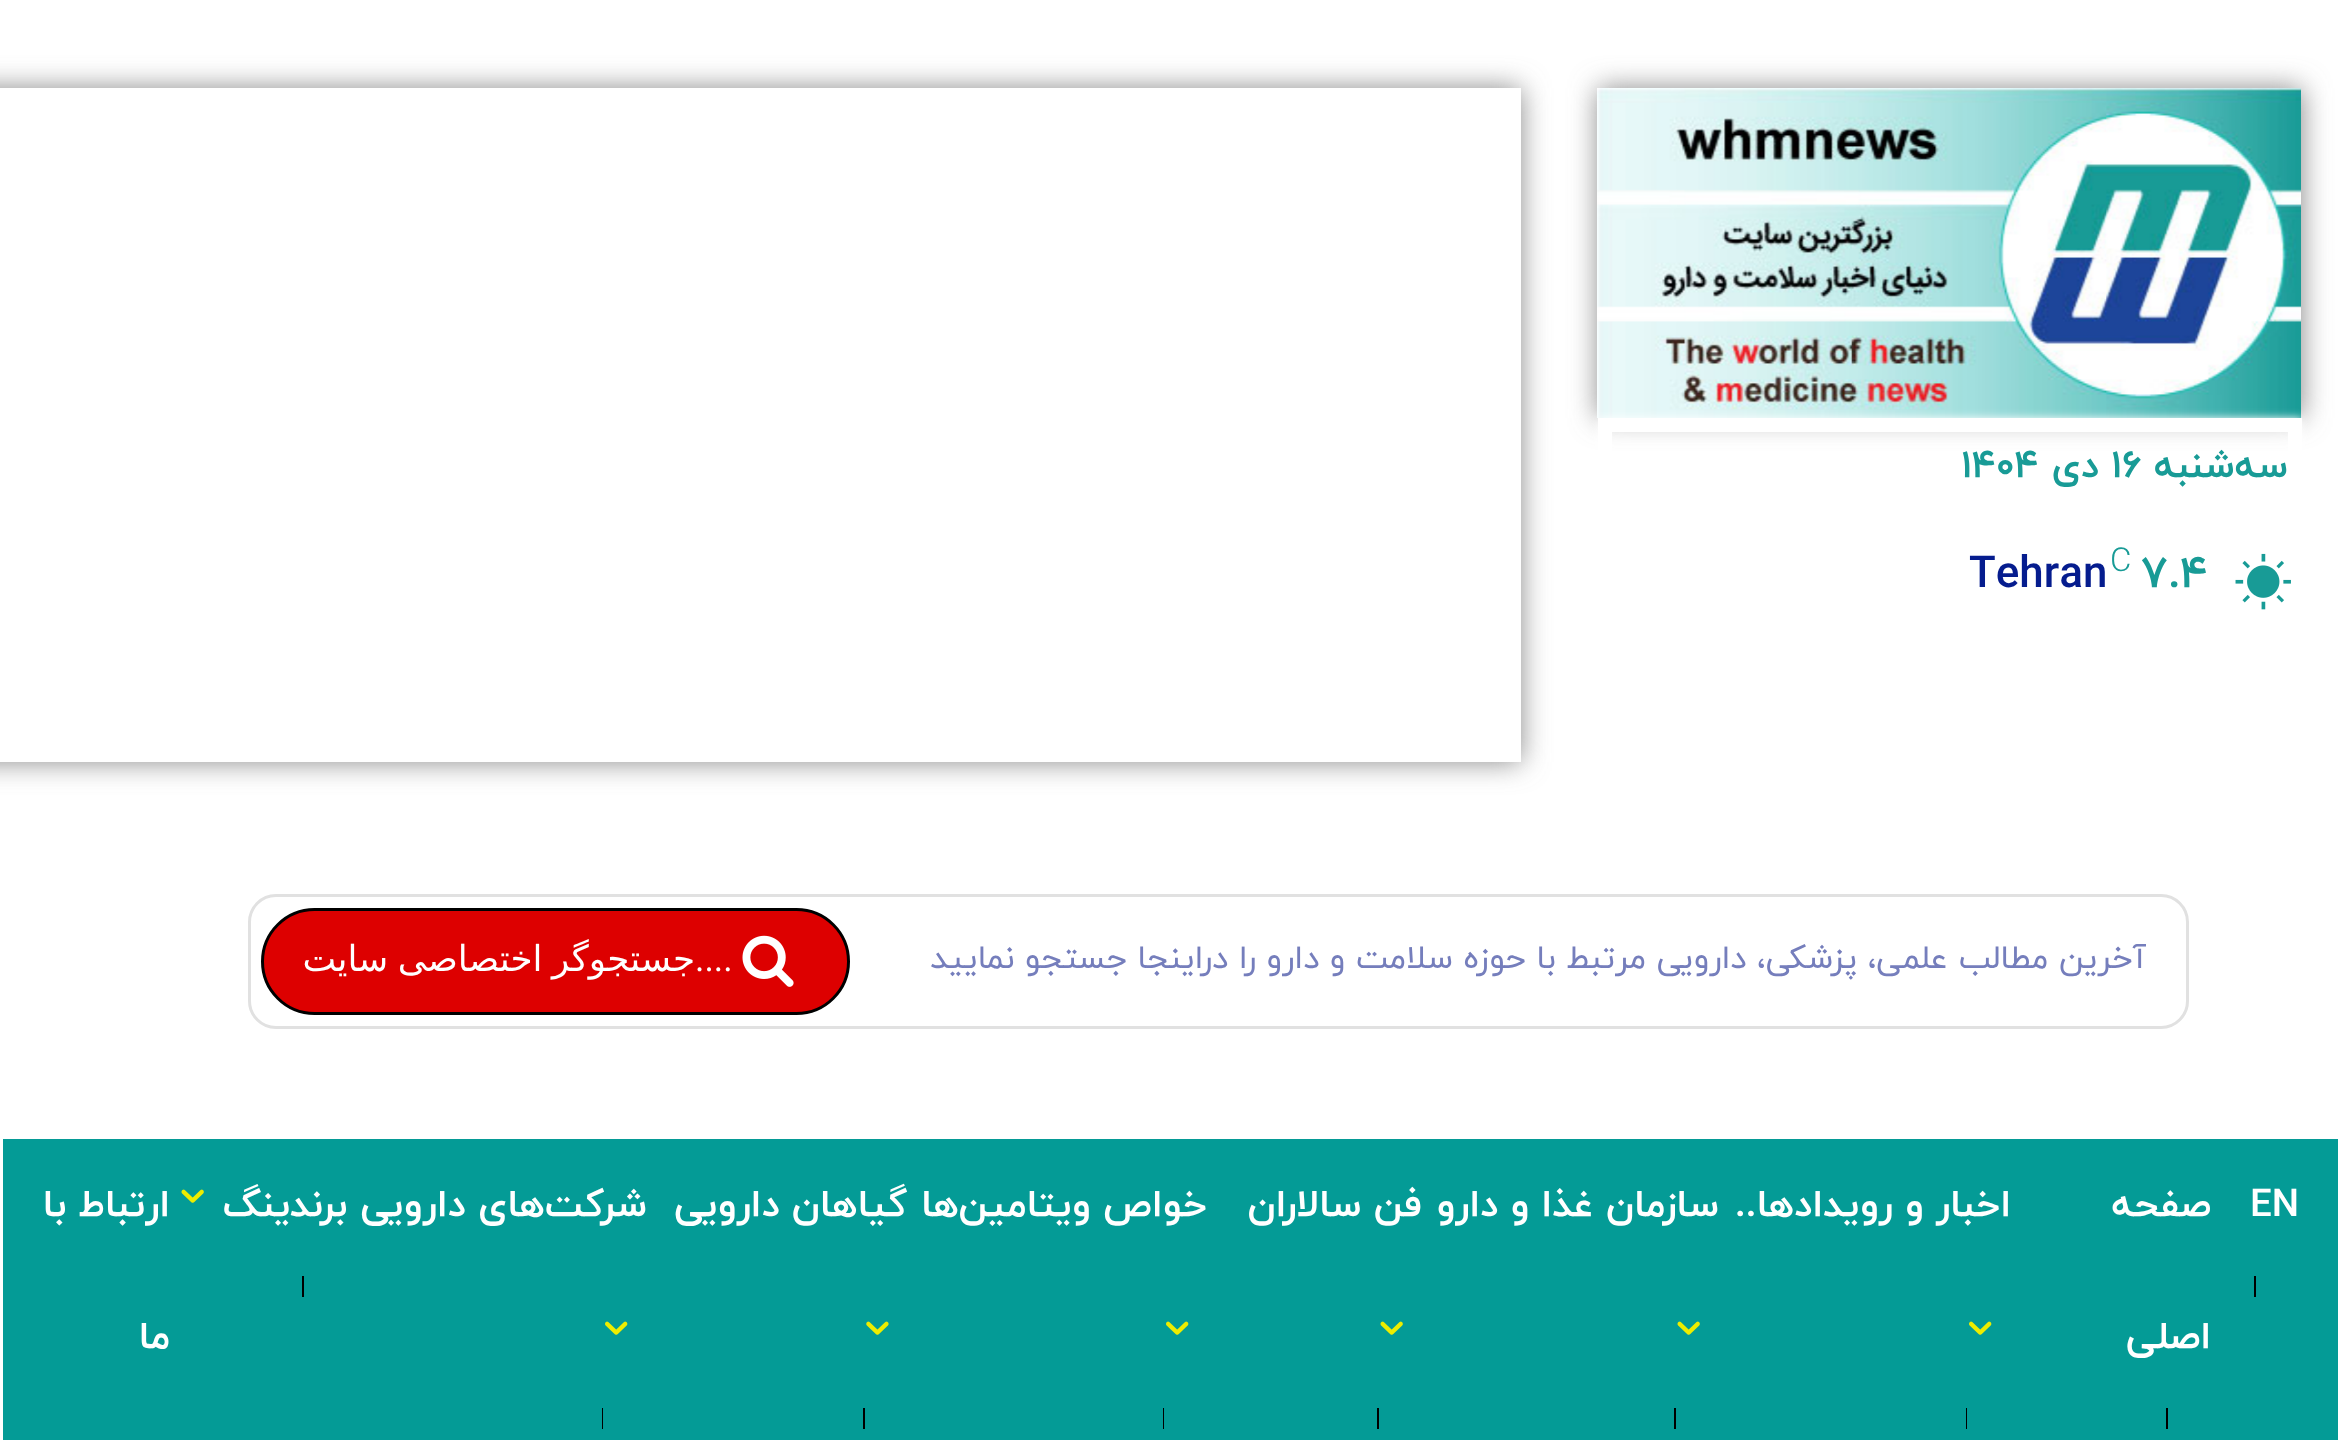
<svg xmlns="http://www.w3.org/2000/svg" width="2338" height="1440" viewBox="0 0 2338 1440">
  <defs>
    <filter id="blur1" x="-50%" y="-200%" width="200%" height="500%"><feGaussianBlur stdDeviation="14"/></filter>
    <clipPath id="clip1"><path d="M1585 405H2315V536H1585ZM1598 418H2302V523H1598Z" clip-rule="evenodd"/></clipPath>
    <filter id="blur2" x="-50%" y="-200%" width="200%" height="500%"><feGaussianBlur stdDeviation="4"/></filter>
    <clipPath id="clip2"><path d="M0 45H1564V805H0ZM-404 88H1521V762H-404Z" clip-rule="evenodd"/></clipPath>
  </defs>
  <rect width="100%" height="100%" fill="#ffffff"/>
  <rect x="1598" y="88" width="704" height="330" fill="#888888" filter="url(#blur1)"/>
  <image x="1597" y="88" width="704" height="330" href="img1.png"/>
  <g clip-path="url(#clip1)">
    <rect x="1598" y="418" width="704" height="105" fill="#ffffff" filter="url(#blur2)"/>
  </g>
  <rect x="1605" y="425" width="690" height="91" fill="none" stroke="#ffffff" stroke-width="14"/>
  <text x="2288" y="477" font-family="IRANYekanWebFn" font-size="38.5" font-weight="bold" direction="rtl" fill="#189b96">سه‌شنبه</text>
  <text x="2111" y="477" font-family="IRANYekanWebFn" font-size="38.5" font-weight="bold" fill="#189b96">۱۶</text>
  <text x="2099" y="477" font-family="IRANYekanWebFn" font-size="38.5" font-weight="bold" direction="rtl" fill="#189b96">دی</text>
  <text x="1961" y="477" font-family="IRANYekanWebFn" font-size="38.5" font-weight="bold" fill="#189b96">۱۴۰۴</text>
  <image x="2235" y="553" width="56" height="57" href="img2.png"/>
  <text x="2141" y="587" font-family="IRANYekanWebFn" font-size="44" font-weight="bold" fill="#189b96">۷.۴</text>
  <text x="2110" y="571" font-family="IRANYekanWebFn" font-size="33" font-weight="300" fill="#189b96">C</text>
  <text x="1969" y="587" font-family="IRANYekanWebFn" font-size="44" font-weight="500" fill="#051c8e">Tehran</text>
  <g clip-path="url(#clip2)">
    <rect x="-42" y="88" width="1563" height="674" fill="#888888" filter="url(#blur1)"/>
  </g>
  <rect x="249.5" y="895.5" width="1938" height="132" rx="26.5" fill="none" stroke="#e1e1e1" stroke-width="3"/>
  <text x="2146" y="968" font-family="IRANYekanWebFn" font-size="33" direction="rtl" fill="#757ebc">آخرین مطالب علمی، پزشکی، دارویی مرتبط با حوزه سلامت و دارو را دراینجا جستجو نمایید</text>
  <rect x="262.5" y="909.5" width="586" height="104" rx="52" fill="#dd0000" stroke="#000000" stroke-width="3"/>
  <image x="742" y="935" width="52" height="52" href="img3.png"/>
  <text x="695" y="971" font-family="Roboto" font-size="35.75" fill="#ffffff">....</text>
  <text x="695" y="971" word-spacing="-2" font-family="DejaVu Sans" font-size="35.75" direction="rtl" fill="#ffffff">جستجوگر اختصاصی سایت</text>
  <rect x="3" y="1139" width="2335" height="301" fill="#049b96"/>
  <text x="2250" y="1216" font-family="IRANYekanWebFn" font-size="38.5" font-weight="bold" fill="#ffffff">EN</text>
  <rect x="2254" y="1276" width="2" height="21" fill="#000000"/>
  <text x="2211" y="1216" font-family="IRANYekanWebFn" font-size="38.5" font-weight="bold" direction="rtl" fill="#ffffff">صفحه</text>
  <text x="2211" y="1348" font-family="IRANYekanWebFn" font-size="38.5" font-weight="bold" direction="rtl" fill="#ffffff">اصلی</text>
  <rect x="2166" y="1408" width="2" height="21" fill="#000000"/>
  <text x="2011" y="1216" font-family="IRANYekanWebFn" font-size="38.5" font-weight="bold" direction="rtl" fill="#ffffff">اخبار و رویدادها..</text>
  <image x="1969" y="1321" width="23" height="14" href="img4.png"/>
  <rect x="1966" y="1408" width="1" height="21" fill="#000000"/>
  <text x="1719" y="1216" font-family="IRANYekanWebFn" font-size="38.5" font-weight="bold" direction="rtl" fill="#ffffff">سازمان غذا و دارو</text>
  <image x="1677" y="1321" width="23" height="14" href="img5.png"/>
  <rect x="1674" y="1408" width="2" height="21" fill="#000000"/>
  <text x="1422" y="1216" font-family="IRANYekanWebFn" font-size="38.5" font-weight="bold" direction="rtl" fill="#ffffff">فن سالاران</text>
  <image x="1380" y="1321" width="23" height="14" href="img5.png"/>
  <rect x="1377" y="1408" width="2" height="21" fill="#000000"/>
  <text x="1207" y="1216" font-family="IRANYekanWebFn" font-size="38.5" font-weight="bold" direction="rtl" fill="#ffffff">خواص ویتامین‌ها</text>
  <image x="1166" y="1321" width="23" height="14" href="img4.png"/>
  <rect x="1163" y="1408" width="1" height="21" fill="#000000"/>
  <text x="907" y="1216" font-family="IRANYekanWebFn" font-size="38.5" font-weight="bold" direction="rtl" fill="#ffffff">گیاهان دارویی</text>
  <image x="866" y="1321" width="23" height="14" href="img6.png"/>
  <rect x="863" y="1408" width="2" height="21" fill="#000000"/>
  <text x="647" y="1216" font-family="IRANYekanWebFn" font-size="38.5" font-weight="bold" direction="rtl" fill="#ffffff">شرکت‌های دارویی</text>
  <image x="605" y="1321" width="23" height="14" href="img4.png"/>
  <rect x="602" y="1408" width="1" height="21" fill="#000000"/>
  <text x="347" y="1216" font-family="IRANYekanWebFn" font-size="38.5" font-weight="bold" direction="rtl" fill="#ffffff">برندینگ</text>
  <image x="181" y="1189" width="23" height="14" href="img5.png"/>
  <rect x="302" y="1276" width="2" height="21" fill="#000000"/>
  <text x="170" y="1216" font-family="IRANYekanWebFn" font-size="38.5" font-weight="bold" direction="rtl" fill="#ffffff">ارتباط با</text>
  <text x="170" y="1348" font-family="IRANYekanWebFn" font-size="38.5" font-weight="bold" direction="rtl" fill="#ffffff">ما</text>
</svg>
